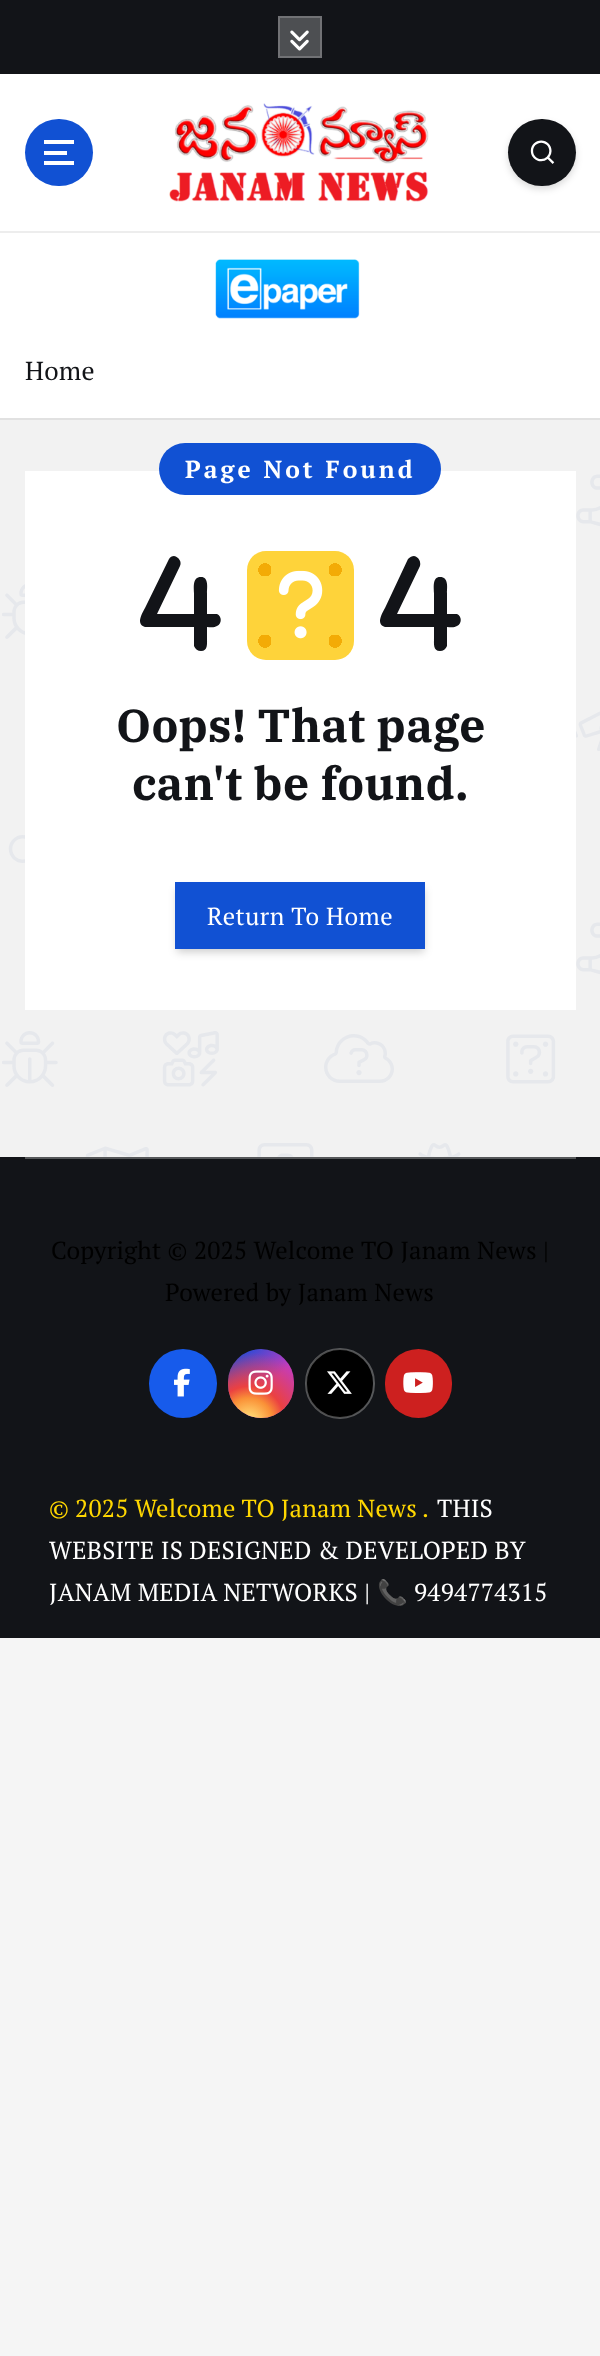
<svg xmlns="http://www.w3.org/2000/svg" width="600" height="2356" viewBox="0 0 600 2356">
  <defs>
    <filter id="blur1" x="-50%" y="-200%" width="200%" height="500%"><feGaussianBlur stdDeviation="3.5"/></filter>
    <radialGradient id="g1" gradientUnits="userSpaceOnUse" cx="335" cy="641" r="6.9"><stop offset="1" stop-color="#f3ab06"/><stop offset="1" stop-color="#fed33a"/></radialGradient>
    <radialGradient id="g2" gradientUnits="userSpaceOnUse" cx="265" cy="641" r="6.9"><stop offset="1" stop-color="#f3ab06"/><stop offset="1" stop-color="#fed33a"/></radialGradient>
    <radialGradient id="g3" gradientUnits="userSpaceOnUse" cx="265" cy="570" r="6.9"><stop offset="1" stop-color="#f3ab06"/><stop offset="1" stop-color="#fed33a"/></radialGradient>
    <radialGradient id="g4" gradientUnits="userSpaceOnUse" cx="335" cy="570" r="6.9"><stop offset="1" stop-color="#f3ab06"/><stop offset="1" stop-color="#fed33a"/></radialGradient>
    <filter id="blur2" x="-50%" y="-200%" width="200%" height="500%"><feGaussianBlur stdDeviation="4.5"/></filter>
    <linearGradient id="g5" gradientUnits="userSpaceOnUse" x1="227" y1="1350" x2="294" y2="1417"><stop offset="0.12" stop-color="#234bd7"/><stop offset="0.58" stop-color="#c33cbe"/></linearGradient>
    <radialGradient id="g6" gradientUnits="userSpaceOnUse" cx="249" cy="1422" r="85"><stop offset="0" stop-color="#ffe17d"/><stop offset="0.1" stop-color="#ffcd69"/><stop offset="0.28" stop-color="#fa9137"/><stop offset="0.42" stop-color="#eb4141"/><stop offset="0.82" stop-color="#eb4141" stop-opacity="0"/></radialGradient>
  </defs>
  <rect width="100%" height="100%" fill="#f5f5f5"/>
  <rect x="0" y="0" width="600" height="74" fill="#121418"/>
  <rect x="279" y="17" width="42" height="40" fill="#4d4f52" stroke="#717275" stroke-width="2"/>
  <image x="290" y="30" width="19" height="21" href="img1.png"/>
  <rect x="0" y="74" width="600" height="344" fill="#ffffff"/>
  <rect x="0" y="231" width="600" height="2" fill="#ededed"/>
  <rect x="25" y="119" width="68" height="67" rx="33.5" fill="#1151d3"/>
  <rect x="44" y="140" width="30" height="4" fill="#ffffff"/>
  <rect x="44" y="151" width="23" height="4" fill="#ffffff"/>
  <rect x="44" y="161" width="30" height="4" fill="#ffffff"/>
  <image x="169" y="103" width="260" height="99" href="img2.png"/>
  <rect x="508" y="123" width="68" height="66" rx="33" fill="#000000" fill-opacity="0.15" filter="url(#blur1)"/>
  <rect x="508" y="119" width="68" height="67" rx="33.5" fill="#121418"/>
  <image x="530" y="140" width="25" height="24" href="img3.png"/>
  <image x="215" y="259" width="145" height="60" href="img4.png"/>
  <rect x="0" y="418" width="600" height="2" fill="#e1e1e1"/>
  <text x="25" y="380" font-family="PT Serif" font-size="26" letter-spacing="0.25" fill="#121418">Home</text>
  <rect x="0" y="420" width="600" height="737" fill="#f2f2f2"/>
  <image x="2" y="474" width="598" height="683" href="img5.png"/>
  <rect x="25" y="471" width="551" height="539" fill="#ffffff"/>
  <rect x="159" y="443" width="282" height="52" rx="26" fill="#1151d3"/>
  <text x="185" y="478" font-family="PT Serif" font-size="24.6" font-weight="bold" letter-spacing="3.1" fill="#ffffff">Page Not Found</text>
  <path d="M180 566C182 562 179 557 174 556C172 556 170 557 169 559L145 608C143 612 135 624 145 627H194V646C195 649 198 651 201 651C208 651 207 644 207 638V627C210 627 214 628 217 626C222 624 222 616 217 614H207V593C207 588 209 577 201 577C192 577 194 588 194 593V614H157Z" fill="#121418"/>
  <rect x="247" y="551" width="107" height="109" rx="19" fill="#fed33a"/>
  <rect x="329" y="635" width="13" height="13" fill="url(#g1)"/>
  <rect x="258" y="635" width="13" height="13" fill="url(#g2)"/>
  <rect x="258" y="563" width="13" height="13" fill="url(#g3)"/>
  <rect x="329" y="563" width="13" height="13" fill="url(#g4)"/>
  <image x="278" y="570" width="45" height="69" href="img6.png"/>
  <path d="M420 566C421 562 419 557 414 556C412 556 410 557 408 559L385 608C383 612 375 624 385 627H434V638C434 644 433 651 440 651C443 651 446 649 447 646V627C450 627 454 628 457 626C462 624 462 616 457 614H447V593C447 588 449 577 440 577C432 577 434 588 434 593V614H397Z" fill="#121418"/>
  <text x="116" y="742" font-family="IBM Plex Serif" font-size="46.25" font-weight="bold" letter-spacing="0.25" fill="#121418">Oops! That page</text>
  <text x="132" y="800" font-family="IBM Plex Serif" font-size="46.25" font-weight="bold" letter-spacing="0.25" fill="#121418">can't be found.</text>
  <rect x="177" y="889" width="247" height="63" fill="#070a19" fill-opacity="0.2" filter="url(#blur2)"/>
  <rect x="175" y="882" width="250" height="67" fill="#1151d3"/>
  <text x="207" y="925" font-family="PT Serif" font-size="24.6" letter-spacing="0.5" fill="#ffffff">Return To Home</text>
  <rect x="0" y="1157" width="600" height="481" fill="#121418"/>
  <rect x="25" y="1157" width="551" height="2" fill="#56585a"/>
  <text x="51" y="1259" font-family="PT Serif" font-size="24.6" letter-spacing="0.25" fill="#000000">Copyright © 2025 Welcome TO Janam News |</text>
  <text x="165" y="1301" font-family="PT Serif" font-size="24.6" letter-spacing="0.25" fill="#000000">Powered by Janam News</text>
  <rect x="149" y="1349" width="68" height="69" rx="34" fill="#175beb"/>
  <image x="174" y="1368" width="16" height="29" href="img7.png"/>
  <rect x="228" y="1349" width="66" height="69" rx="33" fill="url(#g5)"/>
  <rect x="228" y="1349" width="66" height="69" rx="33" fill="url(#g6)"/>
  <image x="248" y="1370" width="25" height="25" href="img8.png"/>
  <rect x="306" y="1349" width="67" height="69" rx="33.5" fill="#000000"/>
  <image x="327" y="1371" width="25" height="23" href="img9.png"/>
  <rect x="306" y="1349" width="68" height="69" rx="34" fill="none" stroke="#bdbdbd" stroke-opacity="0.4" stroke-width="2"/>
  <rect x="385" y="1349" width="67" height="69" rx="33.5" fill="#cd201f"/>
  <image x="403" y="1372" width="30" height="21" href="img10.png"/>
  <text x="49" y="1517" word-spacing="-0.25" font-family="PT Serif" font-size="24.6" letter-spacing="0.25" fill="#ffd700">© 2025 Welcome TO Janam News .</text>
  <text x="437" y="1517" font-family="PT Serif" font-size="24.6" letter-spacing="0.25" fill="#ffffff">THIS</text>
  <text x="49" y="1559" font-family="PT Serif" font-size="24.6" letter-spacing="0.25" fill="#ffffff">WEBSITE IS DESIGNED &amp; DEVELOPED BY</text>
  <text x="49" y="1601" font-family="PT Serif" font-size="24.6" letter-spacing="0.25" fill="#ffffff">JANAM MEDIA NETWORKS |</text>
  <text x="377" y="1601" font-family="Noto Color Emoji" font-size="24.6" letter-spacing="0.25" fill="#ffffff">📞</text>
  <text x="414" y="1601" font-family="PT Serif" font-size="24.6" letter-spacing="0.25" fill="#ffffff">9494774315</text>
</svg>
